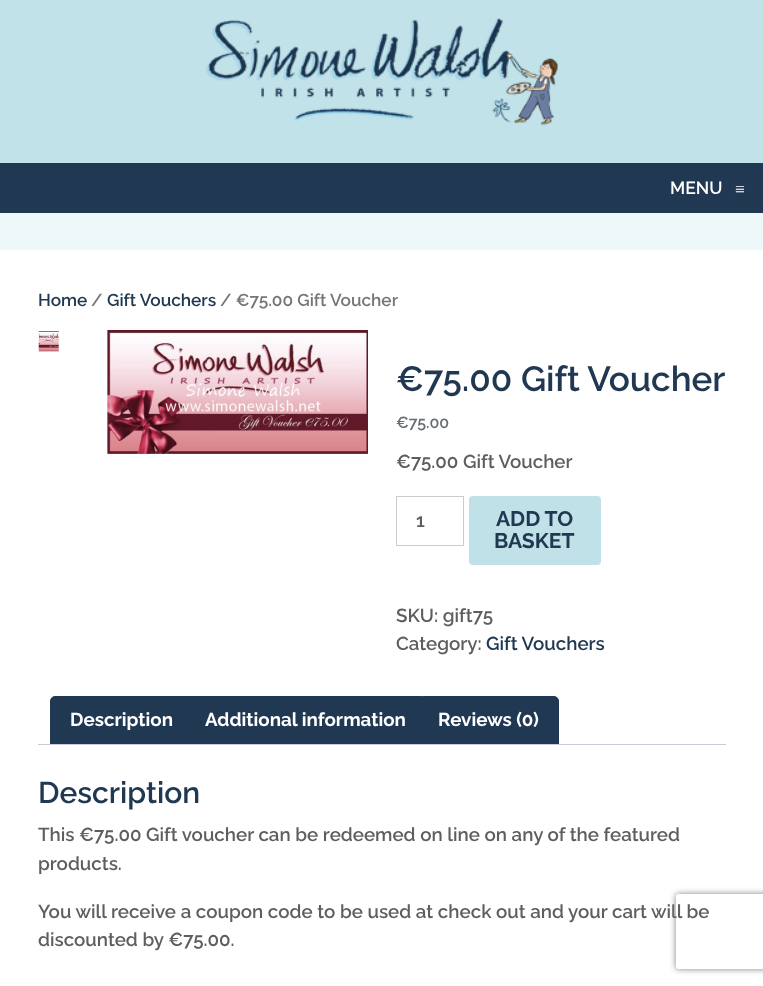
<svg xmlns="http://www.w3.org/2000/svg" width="763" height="986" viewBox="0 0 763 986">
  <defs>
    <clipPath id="clip1"><path d="M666 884H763V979H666ZM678.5 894H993.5C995 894 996 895 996 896.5V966.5C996 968 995 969 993.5 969H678.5C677 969 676 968 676 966.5V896.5C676 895 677 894 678.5 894Z" clip-rule="evenodd"/></clipPath>
    <filter id="blur1" x="-50%" y="-200%" width="200%" height="500%"><feGaussianBlur stdDeviation="3"/></filter>
  </defs>
  <rect width="100%" height="100%" fill="#ffffff"/>
  <rect x="0" y="0" width="763" height="163" fill="#c1e2e9"/>
  <image x="206" y="18" width="352" height="108" href="img1.png"/>
  <rect x="0" y="163" width="763" height="50" fill="#203852"/>
  <text x="670" y="194" font-family="Raleway" font-size="17.5" font-weight="600" fill="#ffffff">MENU</text>
  <text x="735" y="195" font-family="Liberation Serif" font-size="17.5" fill="#ffffff">≡</text>
  <rect x="0" y="213" width="763" height="37" fill="#eff8f9"/>
  <text x="38" y="306" font-family="Raleway" font-size="17.25" font-weight="600" fill="#203852">Home</text>
  <text x="91" y="306" font-family="Raleway" font-size="17.25" font-weight="600" fill="#767676">/</text>
  <text x="107" y="306" font-family="Raleway" font-size="17.25" font-weight="600" fill="#203852">Gift Vouchers</text>
  <text x="220" y="306" font-family="Raleway" font-size="17.25" font-weight="600" fill="#767676">/ €75.00 Gift Voucher</text>
  <image x="38" y="331" width="21" height="21" href="img2.png"/>
  <image x="107" y="330" width="261" height="124" href="img3.png"/>
  <text x="396" y="391" font-family="Raleway" font-size="35" font-weight="600" fill="#203852">€75.00 Gift Voucher</text>
  <text x="396" y="428" font-family="Raleway" font-size="16" font-weight="600" fill="#676d73">€75.00</text>
  <text x="396" y="468" font-family="Raleway" font-size="18.75" font-weight="600" fill="#5e5e5e">€75.00 Gift Voucher</text>
  <rect x="396.5" y="496.5" width="67" height="49" fill="none" stroke="#cccccc"/>
  <text x="416" y="527" font-family="Raleway" font-size="18.75" font-weight="600" fill="#5e5e5e">1</text>
  <rect x="469" y="496" width="132" height="69" rx="4" fill="#c0e1e8"/>
  <text x="496" y="526" font-family="Raleway" font-size="21" font-weight="bold" fill="#203852">ADD TO</text>
  <text x="494" y="548" font-family="Raleway" font-size="21" font-weight="bold" fill="#203852">BASKET</text>
  <text x="396" y="622" font-family="Raleway" font-size="18.75" font-weight="600" fill="#5e5e5e">SKU: gift75</text>
  <text x="396" y="650" font-family="Raleway" font-size="18.75" font-weight="600" fill="#5e5e5e">Category:</text>
  <text x="486" y="650" font-family="Raleway" font-size="18.75" font-weight="600" fill="#203852">Gift Vouchers</text>
  <path d="M55 696.5H188C190.5 696.5 192.5 698.5 192.5 701V744.5H50.5V701C50.5 698.5 52.5 696.5 55 696.5Z" fill="#203852" stroke="#203852"/>
  <text x="70" y="726" font-family="Raleway" font-size="18.75" font-weight="bold" fill="#ffffff">Description</text>
  <path d="M190 696.5H421C423.5 696.5 425.5 698.5 425.5 701V744.5H185.5V701C185.5 698.5 187.5 696.5 190 696.5Z" fill="#203852" stroke="#203852"/>
  <text x="205" y="726" font-family="Raleway" font-size="18.75" font-weight="bold" fill="#ffffff">Additional information</text>
  <path d="M424 696.5H554C556.5 696.5 558.5 698.5 558.5 701V744.5H419.5V701C419.5 698.5 421.5 696.5 424 696.5Z" fill="#203852" stroke="#203852"/>
  <text x="438" y="726" font-family="Raleway" font-size="18.75" font-weight="bold" fill="#ffffff">Reviews (0)</text>
  <rect x="38" y="744" width="688" height="1" fill="#cfc8d8"/>
  <text x="38" y="803" font-family="Raleway" font-size="30" font-weight="600" fill="#203852">Description</text>
  <text x="38" y="841" font-family="Raleway" font-size="18.75" font-weight="600" fill="#5e5e5e">This €75.00 Gift voucher can be redeemed on line on any of the featured</text>
  <text x="38" y="870" font-family="Raleway" font-size="18.75" font-weight="600" fill="#5e5e5e">products.</text>
  <text x="38" y="918" font-family="Raleway" font-size="18.75" font-weight="600" fill="#5e5e5e">You will receive a coupon code to be used at check out and your cart will be</text>
  <text x="38" y="946" font-family="Raleway" font-size="18.75" font-weight="600" fill="#5e5e5e">discounted by €75.00.</text>
  <g clip-path="url(#clip1)">
    <rect x="676" y="894" width="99" height="75" rx="2.5" fill="#808080" filter="url(#blur1)"/>
  </g>
</svg>
